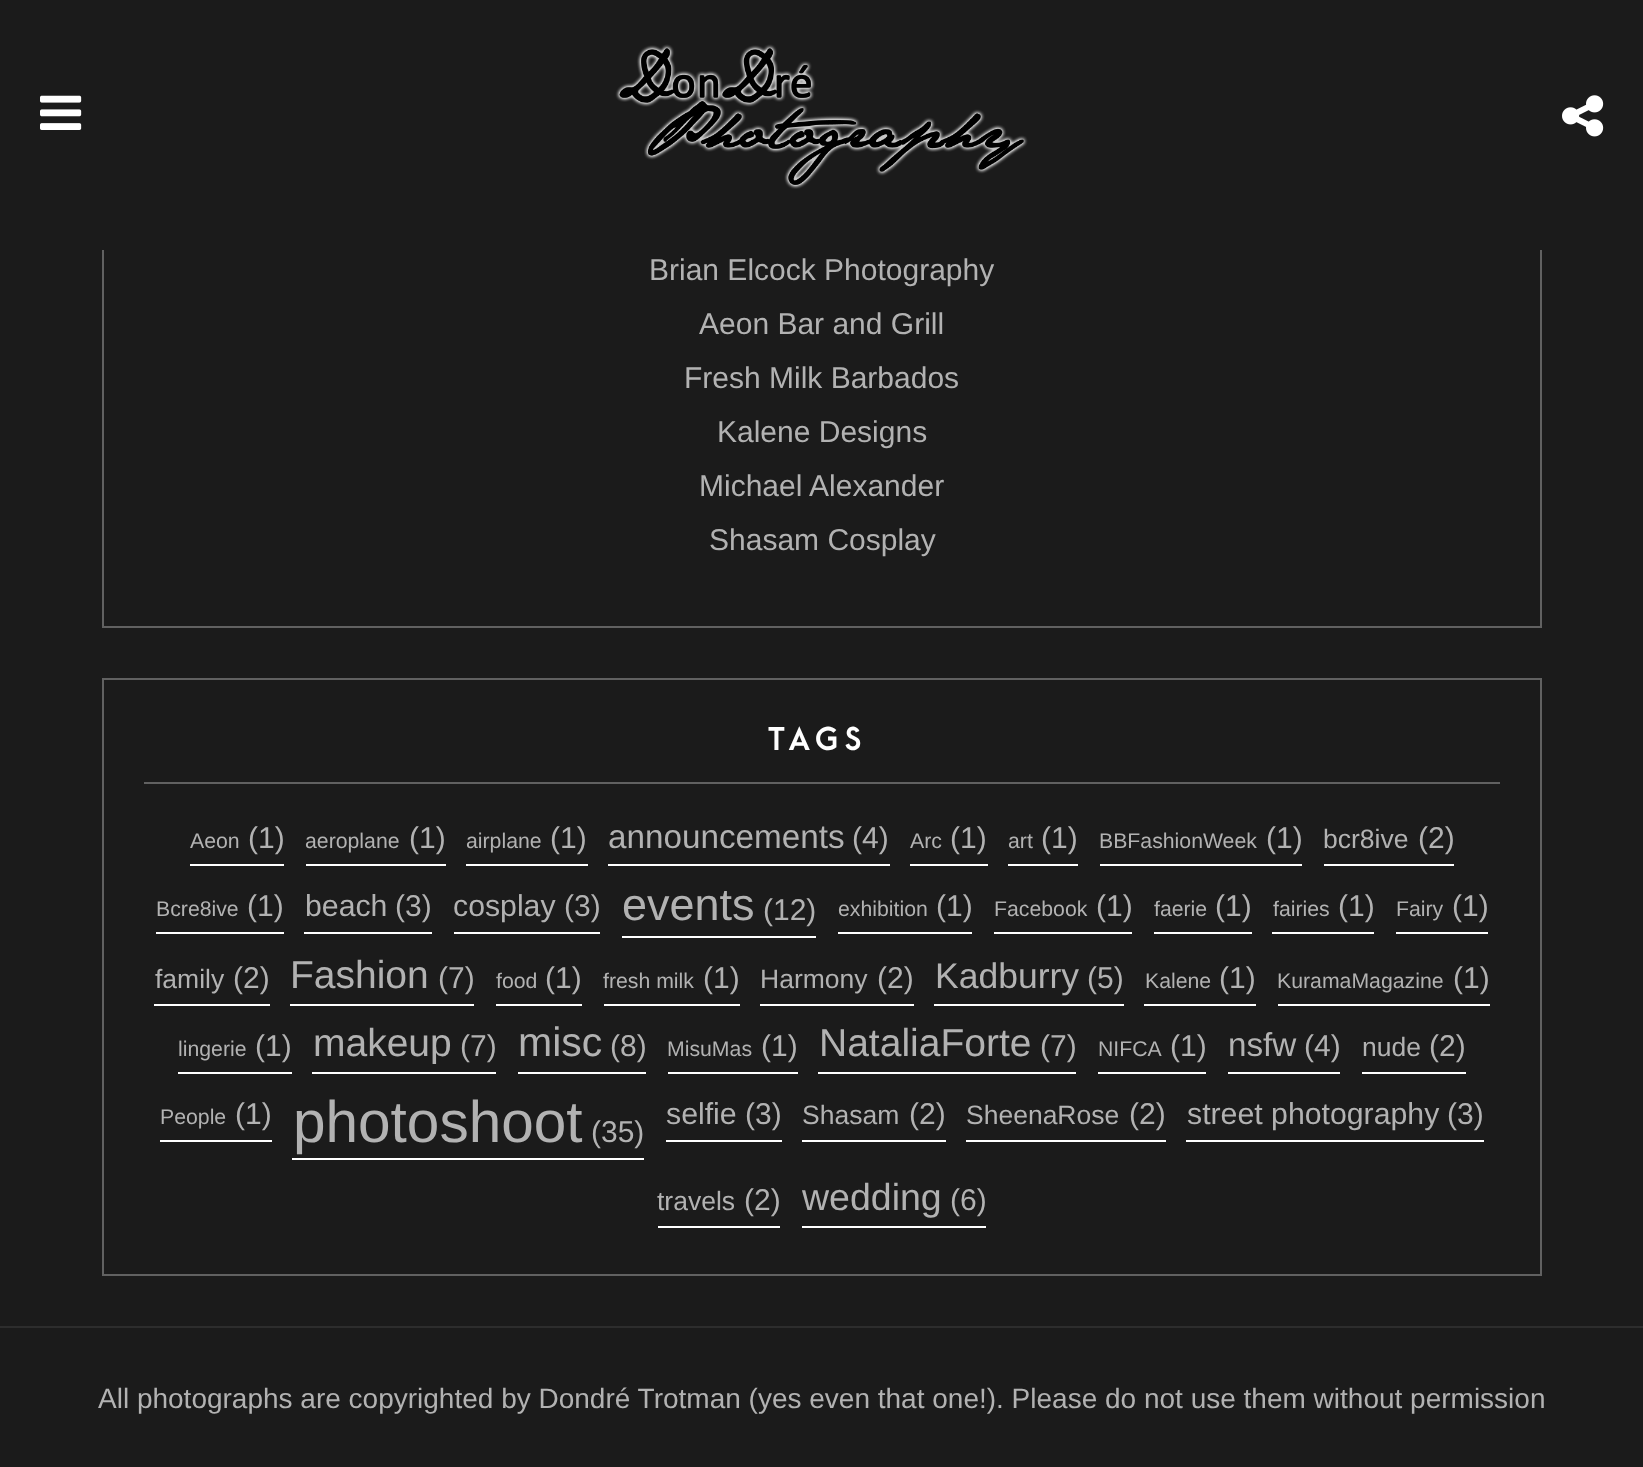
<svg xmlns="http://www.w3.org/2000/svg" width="1643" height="1467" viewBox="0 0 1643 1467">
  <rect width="100%" height="100%" fill="#1b1b1b"/>
  <rect x="103" y="63" width="1438" height="564" fill="none" stroke="#616161" stroke-width="2"/>
  <rect x="102" y="62" width="1440" height="188" fill="#1b1b1b"/>
  <image x="40" y="95" width="42" height="35" href="img1.png"/>
  <image x="615" y="44" width="413" height="145" href="img2.png"/>
  <image x="1562" y="95" width="42" height="42" href="img3.png"/>
  <text x="649" y="280" font-family="Liberation Sans" font-size="30" fill="#b2b2b2">Brian Elcock Photography</text>
  <text x="699" y="334" font-family="Liberation Sans" font-size="30" fill="#b2b2b2">Aeon Bar and Grill</text>
  <text x="684" y="388" font-family="Liberation Sans" font-size="30" fill="#b2b2b2">Fresh Milk Barbados</text>
  <text x="717" y="442" font-family="Liberation Sans" font-size="30" fill="#b2b2b2">Kalene Designs</text>
  <text x="699" y="496" font-family="Liberation Sans" font-size="30" fill="#b2b2b2">Michael Alexander</text>
  <text x="709" y="550" font-family="Liberation Sans" font-size="30" fill="#b2b2b2">Shasam Cosplay</text>
  <rect x="103" y="679" width="1438" height="596" fill="none" stroke="#616161" stroke-width="2"/>
  <rect x="144" y="782" width="1356" height="2" fill="#616161"/>
  <text x="768" y="750" font-family="'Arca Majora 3'" font-size="30" font-weight="bold" letter-spacing="6.5" fill="#ffffff">TAGS</text>
  <rect x="190" y="864" width="94" height="2" fill="#ffffff"/>
  <text x="190" y="848" font-family="Liberation Sans" font-size="21.25" fill="#b2b2b2">Aeon</text>
  <text x="248" y="848" font-family="Liberation Sans" font-size="30" fill="#b2b2b2">(1)</text>
  <rect x="306" y="864" width="140" height="2" fill="#ffffff"/>
  <text x="305" y="848" font-family="Liberation Sans" font-size="21.25" fill="#b2b2b2">aeroplane</text>
  <text x="409" y="848" font-family="Liberation Sans" font-size="30" fill="#b2b2b2">(1)</text>
  <rect x="466" y="864" width="122" height="2" fill="#ffffff"/>
  <text x="466" y="848" font-family="Liberation Sans" font-size="21.25" fill="#b2b2b2">airplane</text>
  <text x="550" y="848" font-family="Liberation Sans" font-size="30" fill="#b2b2b2">(1)</text>
  <rect x="608" y="864" width="282" height="2" fill="#ffffff"/>
  <text x="608" y="848" font-family="Liberation Sans" font-size="33.25" fill="#b2b2b2">announcements</text>
  <text x="852" y="848" font-family="Liberation Sans" font-size="30" fill="#b2b2b2">(4)</text>
  <rect x="910" y="864" width="78" height="2" fill="#ffffff"/>
  <text x="910" y="848" font-family="Liberation Sans" font-size="21.25" fill="#b2b2b2">Arc</text>
  <text x="950" y="848" font-family="Liberation Sans" font-size="30" fill="#b2b2b2">(1)</text>
  <rect x="1008" y="864" width="70" height="2" fill="#ffffff"/>
  <text x="1008" y="848" font-family="Liberation Sans" font-size="21.25" fill="#b2b2b2">art</text>
  <text x="1041" y="848" font-family="Liberation Sans" font-size="30" fill="#b2b2b2">(1)</text>
  <rect x="1100" y="864" width="202" height="2" fill="#ffffff"/>
  <text x="1099" y="848" font-family="Liberation Sans" font-size="21.25" fill="#b2b2b2">BBFashionWeek</text>
  <text x="1266" y="848" font-family="Liberation Sans" font-size="30" fill="#b2b2b2">(1)</text>
  <rect x="1324" y="864" width="130" height="2" fill="#ffffff"/>
  <text x="1323" y="848" font-family="Liberation Sans" font-size="26.5" fill="#b2b2b2">bcr8ive</text>
  <text x="1418" y="848" font-family="Liberation Sans" font-size="30" fill="#b2b2b2">(2)</text>
  <rect x="156" y="932" width="128" height="2" fill="#ffffff"/>
  <text x="156" y="916" font-family="Liberation Sans" font-size="21.25" fill="#b2b2b2">Bcre8ive</text>
  <text x="247" y="916" font-family="Liberation Sans" font-size="30" fill="#b2b2b2">(1)</text>
  <rect x="304" y="932" width="128" height="2" fill="#ffffff"/>
  <text x="305" y="916" font-family="Liberation Sans" font-size="30.25" fill="#b2b2b2">beach</text>
  <text x="395" y="916" font-family="Liberation Sans" font-size="30" fill="#b2b2b2">(3)</text>
  <rect x="454" y="932" width="146" height="2" fill="#ffffff"/>
  <text x="453" y="916" font-family="Liberation Sans" font-size="30.25" fill="#b2b2b2">cosplay</text>
  <text x="564" y="916" font-family="Liberation Sans" font-size="30" fill="#b2b2b2">(3)</text>
  <rect x="622" y="936" width="194" height="2" fill="#ffffff"/>
  <text x="622" y="920" font-family="Liberation Sans" font-size="45" fill="#b2b2b2">events</text>
  <text x="763" y="920" font-family="Liberation Sans" font-size="30" fill="#b2b2b2">(12)</text>
  <rect x="838" y="932" width="134" height="2" fill="#ffffff"/>
  <text x="838" y="916" font-family="Liberation Sans" font-size="21.25" fill="#b2b2b2">exhibition</text>
  <text x="936" y="916" font-family="Liberation Sans" font-size="30" fill="#b2b2b2">(1)</text>
  <rect x="994" y="932" width="138" height="2" fill="#ffffff"/>
  <text x="994" y="916" font-family="Liberation Sans" font-size="21.25" fill="#b2b2b2">Facebook</text>
  <text x="1096" y="916" font-family="Liberation Sans" font-size="30" fill="#b2b2b2">(1)</text>
  <rect x="1154" y="932" width="98" height="2" fill="#ffffff"/>
  <text x="1154" y="916" font-family="Liberation Sans" font-size="21.25" fill="#b2b2b2">faerie</text>
  <text x="1215" y="916" font-family="Liberation Sans" font-size="30" fill="#b2b2b2">(1)</text>
  <rect x="1272" y="932" width="102" height="2" fill="#ffffff"/>
  <text x="1273" y="916" font-family="Liberation Sans" font-size="21.25" fill="#b2b2b2">fairies</text>
  <text x="1338" y="916" font-family="Liberation Sans" font-size="30" fill="#b2b2b2">(1)</text>
  <rect x="1396" y="932" width="92" height="2" fill="#ffffff"/>
  <text x="1396" y="916" font-family="Liberation Sans" font-size="21.25" fill="#b2b2b2">Fairy</text>
  <text x="1452" y="916" font-family="Liberation Sans" font-size="30" fill="#b2b2b2">(1)</text>
  <rect x="154" y="1004" width="116" height="2" fill="#ffffff"/>
  <text x="155" y="988" font-family="Liberation Sans" font-size="26.5" fill="#b2b2b2">family</text>
  <text x="233" y="988" font-family="Liberation Sans" font-size="30" fill="#b2b2b2">(2)</text>
  <rect x="290" y="1004" width="184" height="2" fill="#ffffff"/>
  <text x="290" y="988" font-family="Liberation Sans" font-size="39" fill="#b2b2b2">Fashion</text>
  <text x="438" y="988" font-family="Liberation Sans" font-size="30" fill="#b2b2b2">(7)</text>
  <rect x="496" y="1004" width="86" height="2" fill="#ffffff"/>
  <text x="496" y="988" font-family="Liberation Sans" font-size="21.25" fill="#b2b2b2">food</text>
  <text x="545" y="988" font-family="Liberation Sans" font-size="30" fill="#b2b2b2">(1)</text>
  <rect x="604" y="1004" width="136" height="2" fill="#ffffff"/>
  <text x="603" y="988" font-family="Liberation Sans" font-size="21.25" fill="#b2b2b2">fresh milk</text>
  <text x="703" y="988" font-family="Liberation Sans" font-size="30" fill="#b2b2b2">(1)</text>
  <rect x="760" y="1004" width="154" height="2" fill="#ffffff"/>
  <text x="760" y="988" font-family="Liberation Sans" font-size="26.5" fill="#b2b2b2">Harmony</text>
  <text x="877" y="988" font-family="Liberation Sans" font-size="30" fill="#b2b2b2">(2)</text>
  <rect x="934" y="1004" width="190" height="2" fill="#ffffff"/>
  <text x="935" y="988" font-family="Liberation Sans" font-size="35.5" fill="#b2b2b2">Kadburry</text>
  <text x="1087" y="988" font-family="Liberation Sans" font-size="30" fill="#b2b2b2">(5)</text>
  <rect x="1144" y="1004" width="112" height="2" fill="#ffffff"/>
  <text x="1145" y="988" font-family="Liberation Sans" font-size="21.25" fill="#b2b2b2">Kalene</text>
  <text x="1219" y="988" font-family="Liberation Sans" font-size="30" fill="#b2b2b2">(1)</text>
  <rect x="1278" y="1004" width="212" height="2" fill="#ffffff"/>
  <text x="1277" y="988" font-family="Liberation Sans" font-size="21.25" fill="#b2b2b2">KuramaMagazine</text>
  <text x="1453" y="988" font-family="Liberation Sans" font-size="30" fill="#b2b2b2">(1)</text>
  <rect x="178" y="1072" width="114" height="2" fill="#ffffff"/>
  <text x="178" y="1056" font-family="Liberation Sans" font-size="21.25" fill="#b2b2b2">lingerie</text>
  <text x="255" y="1056" font-family="Liberation Sans" font-size="30" fill="#b2b2b2">(1)</text>
  <rect x="312" y="1072" width="184" height="2" fill="#ffffff"/>
  <text x="313" y="1056" font-family="Liberation Sans" font-size="39" fill="#b2b2b2">makeup</text>
  <text x="460" y="1056" font-family="Liberation Sans" font-size="30" fill="#b2b2b2">(7)</text>
  <rect x="518" y="1072" width="128" height="2" fill="#ffffff"/>
  <text x="518" y="1056" font-family="Liberation Sans" font-size="41" fill="#b2b2b2">misc</text>
  <text x="610" y="1056" font-family="Liberation Sans" font-size="30" fill="#b2b2b2">(8)</text>
  <rect x="668" y="1072" width="130" height="2" fill="#ffffff"/>
  <text x="667" y="1056" font-family="Liberation Sans" font-size="21.25" fill="#b2b2b2">MisuMas</text>
  <text x="761" y="1056" font-family="Liberation Sans" font-size="30" fill="#b2b2b2">(1)</text>
  <rect x="818" y="1072" width="258" height="2" fill="#ffffff"/>
  <text x="819" y="1056" font-family="Liberation Sans" font-size="39" fill="#b2b2b2">NataliaForte</text>
  <text x="1040" y="1056" font-family="Liberation Sans" font-size="30" fill="#b2b2b2">(7)</text>
  <rect x="1098" y="1072" width="108" height="2" fill="#ffffff"/>
  <text x="1098" y="1056" font-family="Liberation Sans" font-size="21.25" fill="#b2b2b2">NIFCA</text>
  <text x="1170" y="1056" font-family="Liberation Sans" font-size="30" fill="#b2b2b2">(1)</text>
  <rect x="1228" y="1072" width="112" height="2" fill="#ffffff"/>
  <text x="1228" y="1056" font-family="Liberation Sans" font-size="33.25" fill="#b2b2b2">nsfw</text>
  <text x="1304" y="1056" font-family="Liberation Sans" font-size="30" fill="#b2b2b2">(4)</text>
  <rect x="1362" y="1072" width="104" height="2" fill="#ffffff"/>
  <text x="1362" y="1056" font-family="Liberation Sans" font-size="26.5" fill="#b2b2b2">nude</text>
  <text x="1429" y="1056" font-family="Liberation Sans" font-size="30" fill="#b2b2b2">(2)</text>
  <rect x="160" y="1140" width="112" height="2" fill="#ffffff"/>
  <text x="160" y="1124" font-family="Liberation Sans" font-size="21.25" fill="#b2b2b2">People</text>
  <text x="235" y="1124" font-family="Liberation Sans" font-size="30" fill="#b2b2b2">(1)</text>
  <rect x="292" y="1158" width="352" height="2" fill="#ffffff"/>
  <text x="293" y="1142" font-family="Liberation Sans" font-size="58.5" fill="#b2b2b2">photoshoot</text>
  <text x="591" y="1142" font-family="Liberation Sans" font-size="30" fill="#b2b2b2">(35)</text>
  <rect x="666" y="1140" width="116" height="2" fill="#ffffff"/>
  <text x="666" y="1124" font-family="Liberation Sans" font-size="30.25" fill="#b2b2b2">selfie</text>
  <text x="745" y="1124" font-family="Liberation Sans" font-size="30" fill="#b2b2b2">(3)</text>
  <rect x="802" y="1140" width="144" height="2" fill="#ffffff"/>
  <text x="802" y="1124" font-family="Liberation Sans" font-size="26.5" fill="#b2b2b2">Shasam</text>
  <text x="909" y="1124" font-family="Liberation Sans" font-size="30" fill="#b2b2b2">(2)</text>
  <rect x="966" y="1140" width="200" height="2" fill="#ffffff"/>
  <text x="966" y="1124" font-family="Liberation Sans" font-size="26.5" fill="#b2b2b2">SheenaRose</text>
  <text x="1129" y="1124" font-family="Liberation Sans" font-size="30" fill="#b2b2b2">(2)</text>
  <rect x="1186" y="1140" width="298" height="2" fill="#ffffff"/>
  <text x="1187" y="1124" font-family="Liberation Sans" font-size="30.25" fill="#b2b2b2">street photography</text>
  <text x="1447" y="1124" font-family="Liberation Sans" font-size="30" fill="#b2b2b2">(3)</text>
  <rect x="658" y="1226" width="122" height="2" fill="#ffffff"/>
  <text x="657" y="1210" font-family="Liberation Sans" font-size="26.5" fill="#b2b2b2">travels</text>
  <text x="744" y="1210" font-family="Liberation Sans" font-size="30" fill="#b2b2b2">(2)</text>
  <rect x="802" y="1226" width="184" height="2" fill="#ffffff"/>
  <text x="802" y="1210" font-family="Liberation Sans" font-size="37.5" fill="#b2b2b2">wedding</text>
  <text x="950" y="1210" font-family="Liberation Sans" font-size="30" fill="#b2b2b2">(6)</text>
  <rect x="0" y="1326" width="1643" height="2" fill="#2d2d2d"/>
  <text x="98" y="1408" font-family="Liberation Sans" font-size="28" fill="#b2b2b2">All photographs are copyrighted by Dondré Trotman (yes even that one!). Please do not use them without permission</text>
</svg>
